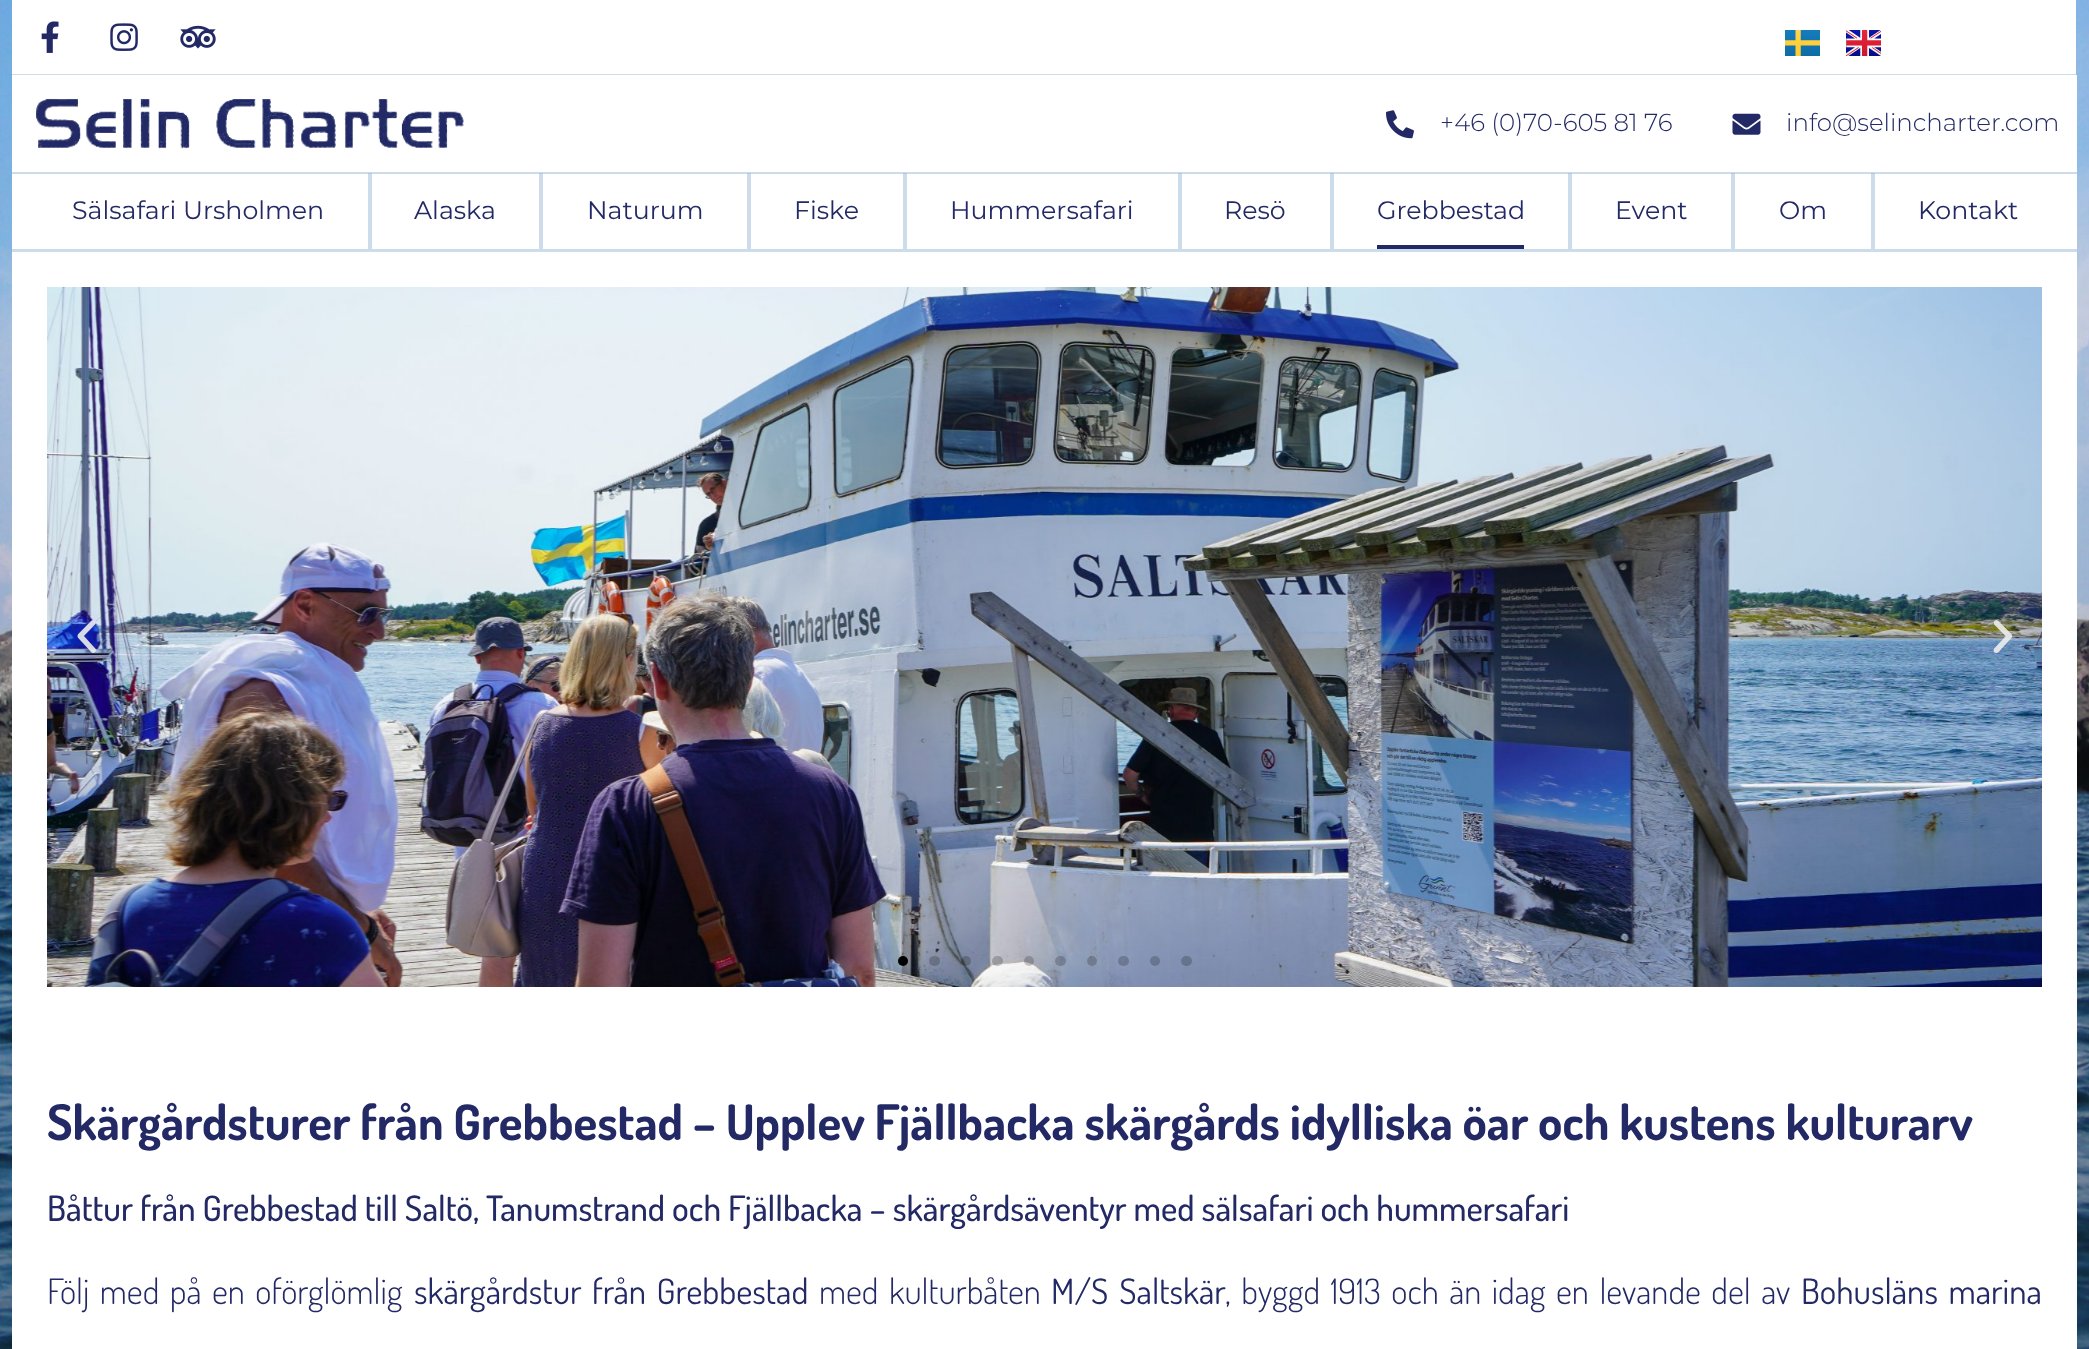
<svg xmlns="http://www.w3.org/2000/svg" width="2089" height="1349" viewBox="0 0 2089 1349">
  <rect width="100%" height="100%" fill="#ffffff"/>
  <image x="0" y="0" width="2089" height="1349" href="img1.png"/>
  <rect x="12" y="0" width="2064" height="75" fill="#ffffff"/>
  <rect x="12" y="74" width="1756" height="1" fill="#8aadd0" fill-opacity="0.43"/>
  <image x="41" y="21" width="18" height="32" href="img2.png"/>
  <image x="110" y="23" width="28" height="28" href="img3.png"/>
  <image x="180" y="25" width="36" height="24" href="img4.png"/>
  <rect x="1768" y="74" width="308" height="1" fill="#8aadd0" fill-opacity="0.43"/>
  <image x="1785" y="30" width="35" height="26" href="img5.png"/>
  <image x="1846" y="30" width="35" height="26" href="img6.png"/>
  <rect x="12" y="75" width="2065" height="97" fill="#ffffff"/>
  <image x="36" y="98" width="428" height="51" href="img7.png"/>
  <image x="1386" y="110" width="28" height="29" href="img8.png"/>
  <text x="1440" y="131" font-family="Montserrat" font-size="24.5" font-weight="300" fill="#232965">+46 (0)70-605 81 76</text>
  <image x="1732" y="113" width="29" height="22" href="img9.png"/>
  <text x="1786" y="131" font-family="Montserrat" font-size="24.5" font-weight="300" fill="#232965">info@selincharter.com</text>
  <rect x="12" y="174" width="2065" height="1175" fill="#ffffff"/>
  <rect x="12" y="172" width="2065" height="2" fill="#cddceb"/>
  <rect x="12" y="249" width="2065" height="3" fill="#8aadd0" fill-opacity="0.43"/>
  <text x="72" y="219" font-family="Montserrat" font-size="25.25" fill="#232965">Sälsafari Ursholmen</text>
  <rect x="368" y="173" width="4" height="76" fill="#8aadd0" fill-opacity="0.43"/>
  <text x="414" y="219" font-family="Montserrat" font-size="25.25" fill="#232965">Alaska</text>
  <rect x="539" y="173" width="4" height="76" fill="#8aadd0" fill-opacity="0.43"/>
  <text x="587" y="219" font-family="Montserrat" font-size="25.25" fill="#232965">Naturum</text>
  <rect x="747" y="173" width="4" height="76" fill="#8aadd0" fill-opacity="0.43"/>
  <text x="794" y="219" font-family="Montserrat" font-size="25.25" fill="#232965">Fiske</text>
  <rect x="903" y="173" width="4" height="76" fill="#8aadd0" fill-opacity="0.43"/>
  <text x="950" y="219" font-family="Montserrat" font-size="25.25" fill="#232965">Hummersafari</text>
  <rect x="1178" y="173" width="4" height="76" fill="#8aadd0" fill-opacity="0.43"/>
  <text x="1224" y="219" font-family="Montserrat" font-size="25.25" fill="#232965">Resö</text>
  <rect x="1330" y="173" width="4" height="76" fill="#8aadd0" fill-opacity="0.43"/>
  <text x="1377" y="219" font-family="Montserrat" font-size="25.25" fill="#232965">Grebbestad</text>
  <rect x="1377" y="245" width="147" height="4" fill="#232965"/>
  <rect x="1568" y="173" width="4" height="76" fill="#8aadd0" fill-opacity="0.43"/>
  <text x="1615" y="219" font-family="Montserrat" font-size="25.25" fill="#232965">Event</text>
  <rect x="1731" y="173" width="4" height="76" fill="#8aadd0" fill-opacity="0.43"/>
  <text x="1779" y="219" font-family="Montserrat" font-size="25.25" fill="#232965">Om</text>
  <rect x="1871" y="173" width="4" height="76" fill="#8aadd0" fill-opacity="0.43"/>
  <text x="1918" y="219" font-family="Montserrat" font-size="25.25" fill="#232965">Kontakt</text>
  <image x="47" y="287" width="1995" height="700" href="img10.png"/>
  <image x="77" y="620" width="19" height="33" href="img11.png"/>
  <image x="1993" y="620" width="20" height="33" href="img12.png"/>
  <circle cx="903" cy="961" r="5" fill="#000000"/>
  <rect x="929" y="956" width="11" height="10" rx="5" fill="#000000" fill-opacity="0.2"/>
  <circle cx="966" cy="961" r="5" fill="#000000" fill-opacity="0.2"/>
  <rect x="992" y="956" width="11" height="10" rx="5" fill="#000000" fill-opacity="0.2"/>
  <circle cx="1029" cy="961" r="5" fill="#000000" fill-opacity="0.2"/>
  <rect x="1055" y="956" width="11" height="10" rx="5" fill="#000000" fill-opacity="0.2"/>
  <circle cx="1092" cy="961" r="5" fill="#000000" fill-opacity="0.2"/>
  <rect x="1118" y="956" width="11" height="10" rx="5" fill="#000000" fill-opacity="0.2"/>
  <circle cx="1155" cy="961" r="5" fill="#000000" fill-opacity="0.2"/>
  <rect x="1181" y="956" width="11" height="10" rx="5" fill="#000000" fill-opacity="0.2"/>
  <text x="47" y="1140" font-family="Dosis" font-size="49" font-weight="bold" fill="#232965">Skärgårdsturer från Grebbestad – Upplev Fjällbacka skärgårds idylliska öar och kustens kulturarv</text>
  <text x="47" y="1221" font-family="Dosis" font-size="35" font-weight="500" fill="#232965">Båttur från Grebbestad till Saltö, Tanumstrand och Fjällbacka – skärgårdsäventyr med sälsafari och hummersafari</text>
  <text x="47" y="1304" word-spacing="3.5" font-family="Dosis" font-size="35" font-weight="300" fill="#232965">Följ med på en oförglömlig</text>
  <text x="414" y="1304" word-spacing="3.5" font-family="Dosis" font-size="35" fill="#232965">skärgårdstur från Grebbestad</text>
  <text x="819" y="1304" word-spacing="3.5" font-family="Dosis" font-size="35" font-weight="300" fill="#232965">med kulturbåten</text>
  <text x="1051" y="1304" word-spacing="4" font-family="Dosis" font-size="35" fill="#232965">M/S Saltskär</text>
  <text x="1225" y="1304" word-spacing="3.5" font-family="Dosis" font-size="35" font-weight="300" fill="#232965">, byggd 1913 och än idag en levande del av</text>
  <text x="1801" y="1304" word-spacing="3.5" font-family="Dosis" font-size="35" fill="#232965">Bohusläns marina</text>
</svg>
